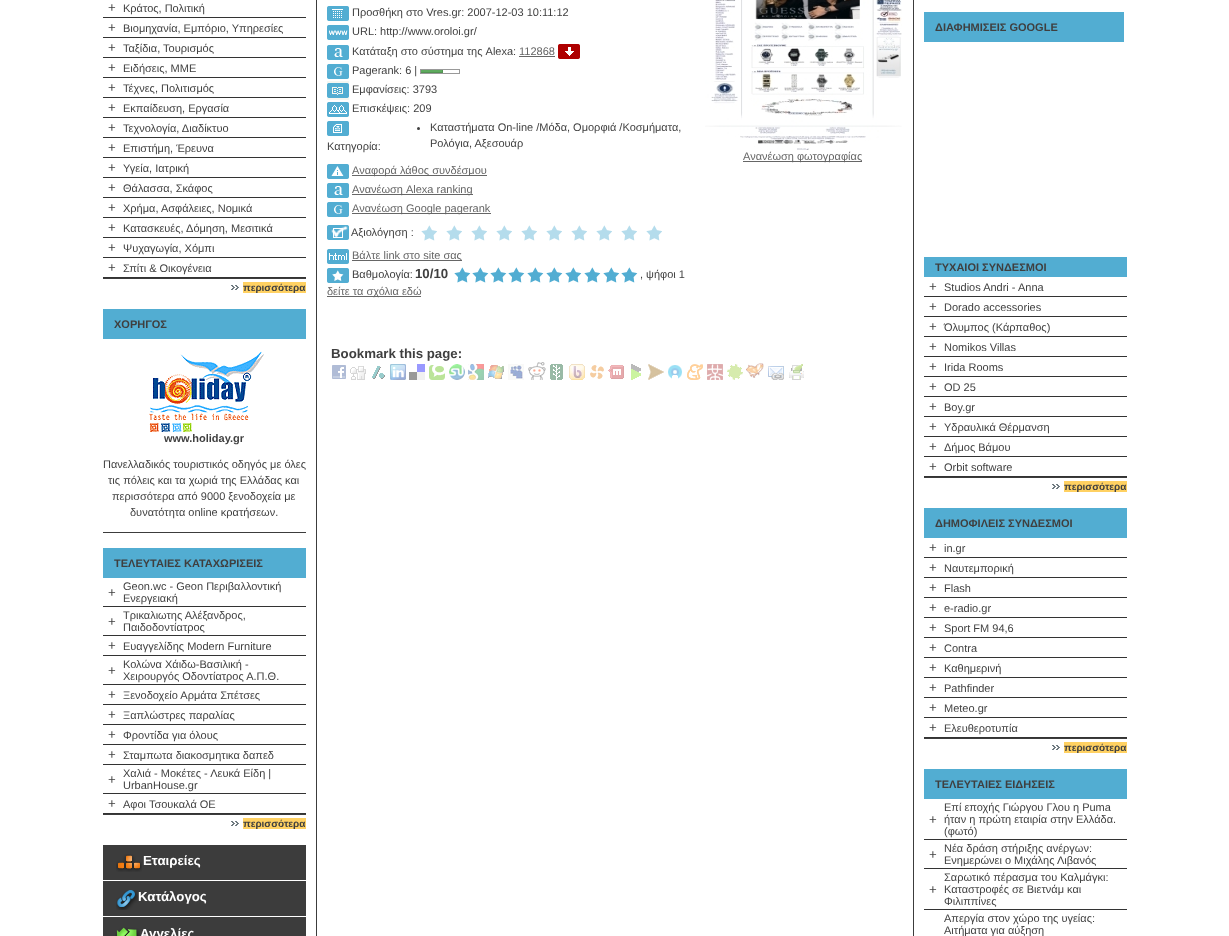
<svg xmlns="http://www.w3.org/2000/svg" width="1229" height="936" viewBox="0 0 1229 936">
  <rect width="100%" height="100%" fill="#ffffff"/>
  <text x="108" y="12" font-family="Liberation Sans" font-size="13.25" fill="#3f3f3f">+</text>
  <text x="123" y="12" font-family="Liberation Sans" font-size="11" fill="#3f3f3f">Κράτος, Πολιτική</text>
  <rect x="103" y="17" width="203" height="1" fill="#333333"/>
  <text x="108" y="32" font-family="Liberation Sans" font-size="13.25" fill="#3f3f3f">+</text>
  <text x="123" y="32" font-family="Liberation Sans" font-size="11" fill="#3f3f3f">Βιομηχανία, Εμπόριο, Υπηρεσίες</text>
  <rect x="103" y="37" width="203" height="1" fill="#333333"/>
  <text x="108" y="52" font-family="Liberation Sans" font-size="13.25" fill="#3f3f3f">+</text>
  <text x="123" y="52" font-family="Liberation Sans" font-size="11" fill="#3f3f3f">Ταξίδια, Τουρισμός</text>
  <rect x="103" y="57" width="203" height="1" fill="#333333"/>
  <text x="108" y="72" font-family="Liberation Sans" font-size="13.25" fill="#3f3f3f">+</text>
  <text x="123" y="72" font-family="Liberation Sans" font-size="11" fill="#3f3f3f">Ειδήσεις, ΜΜΕ</text>
  <rect x="103" y="77" width="203" height="1" fill="#333333"/>
  <text x="108" y="92" font-family="Liberation Sans" font-size="13.25" fill="#3f3f3f">+</text>
  <text x="123" y="92" font-family="Liberation Sans" font-size="11" fill="#3f3f3f">Τέχνες, Πολιτισμός</text>
  <rect x="103" y="97" width="203" height="1" fill="#333333"/>
  <text x="108" y="112" font-family="Liberation Sans" font-size="13.25" fill="#3f3f3f">+</text>
  <text x="123" y="112" font-family="Liberation Sans" font-size="11" fill="#3f3f3f">Εκπαίδευση, Εργασία</text>
  <rect x="103" y="117" width="203" height="1" fill="#333333"/>
  <text x="108" y="132" font-family="Liberation Sans" font-size="13.25" fill="#3f3f3f">+</text>
  <text x="123" y="132" font-family="Liberation Sans" font-size="11" fill="#3f3f3f">Τεχνολογία, Διαδίκτυο</text>
  <rect x="103" y="137" width="203" height="1" fill="#333333"/>
  <text x="108" y="152" font-family="Liberation Sans" font-size="13.25" fill="#3f3f3f">+</text>
  <text x="123" y="152" font-family="Liberation Sans" font-size="11" fill="#3f3f3f">Επιστήμη, Έρευνα</text>
  <rect x="103" y="157" width="203" height="1" fill="#333333"/>
  <text x="108" y="172" font-family="Liberation Sans" font-size="13.25" fill="#3f3f3f">+</text>
  <text x="123" y="172" font-family="Liberation Sans" font-size="11" fill="#3f3f3f">Υγεία, Ιατρική</text>
  <rect x="103" y="177" width="203" height="1" fill="#333333"/>
  <text x="108" y="192" font-family="Liberation Sans" font-size="13.25" fill="#3f3f3f">+</text>
  <text x="123" y="192" font-family="Liberation Sans" font-size="11" fill="#3f3f3f">Θάλασσα, Σκάφος</text>
  <rect x="103" y="197" width="203" height="1" fill="#333333"/>
  <text x="108" y="212" font-family="Liberation Sans" font-size="13.25" fill="#3f3f3f">+</text>
  <text x="123" y="212" font-family="Liberation Sans" font-size="11" fill="#3f3f3f">Χρήμα, Ασφάλειες, Νομικά</text>
  <rect x="103" y="217" width="203" height="1" fill="#333333"/>
  <text x="108" y="232" font-family="Liberation Sans" font-size="13.25" fill="#3f3f3f">+</text>
  <text x="123" y="232" font-family="Liberation Sans" font-size="11" fill="#3f3f3f">Κατασκευές, Δόμηση, Μεσιτικά</text>
  <rect x="103" y="237" width="203" height="1" fill="#333333"/>
  <text x="108" y="252" font-family="Liberation Sans" font-size="13.25" fill="#3f3f3f">+</text>
  <text x="123" y="252" font-family="Liberation Sans" font-size="11" fill="#3f3f3f">Ψυχαγωγία, Χόμπι</text>
  <rect x="103" y="257" width="203" height="1" fill="#333333"/>
  <text x="108" y="272" font-family="Liberation Sans" font-size="13.25" fill="#3f3f3f">+</text>
  <text x="123" y="272" font-family="Liberation Sans" font-size="11" fill="#3f3f3f">Σπίτι &amp; Οικογένεια</text>
  <rect x="103" y="277" width="203" height="1" fill="#333333"/>
  <rect x="103" y="278" width="203" height="1" fill="#3c3c3c"/>
  <image x="231" y="285" width="8" height="5" href="img1.png"/>
  <rect x="243" y="282" width="63" height="11" fill="#ffd162"/>
  <text x="243" y="291" font-family="Liberation Sans" font-size="10" font-weight="bold" fill="#3f3f3f">περισσότερα</text>
  <rect x="103" y="309" width="203" height="30" fill="#52add2"/>
  <text x="114" y="328" font-family="Liberation Sans" font-size="11" font-weight="bold" fill="#3f3f3f">ΧΟΡΗΓΟΣ</text>
  <image x="149" y="351" width="115" height="81" href="img2.png"/>
  <text x="164" y="442" font-family="Liberation Sans" font-size="11" font-weight="bold" fill="#3f3f3f">www.holiday.gr</text>
  <text x="103" y="468" font-family="Liberation Sans" font-size="11" fill="#3f3f3f">Πανελλαδικός τουριστικός οδηγός με όλες</text>
  <text x="108" y="484" font-family="Liberation Sans" font-size="11" fill="#3f3f3f">τις πόλεις και τα χωριά της Ελλάδας και</text>
  <text x="112" y="500" font-family="Liberation Sans" font-size="11" fill="#3f3f3f">περισσότερα από 9000 ξενοδοχεία με</text>
  <text x="130" y="516" font-family="Liberation Sans" font-size="11" fill="#3f3f3f">δυνατότητα online κρατήσεων.</text>
  <rect x="103" y="532" width="203" height="1" fill="#3c3c3c"/>
  <rect x="103" y="548" width="203" height="30" fill="#52add2"/>
  <text x="114" y="567" font-family="Liberation Sans" font-size="11" font-weight="bold" fill="#3f3f3f">ΤΕΛΕΥΤΑΙΕΣ ΚΑΤΑΧΩΡΙΣΕΙΣ</text>
  <text x="108" y="597" font-family="Liberation Sans" font-size="13.25" fill="#3f3f3f">+</text>
  <text x="123" y="590" font-family="Liberation Sans" font-size="11" fill="#3f3f3f">Geon.wc - Geon Περιβαλλοντική</text>
  <text x="123" y="602" font-family="Liberation Sans" font-size="11" fill="#3f3f3f">Ενεργειακή</text>
  <rect x="103" y="606" width="203" height="1" fill="#333333"/>
  <text x="108" y="626" font-family="Liberation Sans" font-size="13.25" fill="#3f3f3f">+</text>
  <text x="123" y="619" font-family="Liberation Sans" font-size="11" fill="#3f3f3f">Τρικαλιωτης Αλέξανδρος,</text>
  <text x="123" y="631" font-family="Liberation Sans" font-size="11" fill="#3f3f3f">Παιδοδοντίατρος</text>
  <rect x="103" y="635" width="203" height="1" fill="#333333"/>
  <text x="108" y="650" font-family="Liberation Sans" font-size="13.25" fill="#3f3f3f">+</text>
  <text x="123" y="650" font-family="Liberation Sans" font-size="11" fill="#3f3f3f">Ευαγγελίδης Modern Furniture</text>
  <rect x="103" y="655" width="203" height="1" fill="#333333"/>
  <text x="108" y="675" font-family="Liberation Sans" font-size="13.25" fill="#3f3f3f">+</text>
  <text x="123" y="668" font-family="Liberation Sans" font-size="11" fill="#3f3f3f">Κολώνα Χάιδω-Βασιλική -</text>
  <text x="123" y="680" font-family="Liberation Sans" font-size="11" fill="#3f3f3f">Χειρουργός Οδοντίατρος Α.Π.Θ.</text>
  <rect x="103" y="684" width="203" height="1" fill="#333333"/>
  <text x="108" y="699" font-family="Liberation Sans" font-size="13.25" fill="#3f3f3f">+</text>
  <text x="123" y="699" font-family="Liberation Sans" font-size="11" fill="#3f3f3f">Ξενοδοχείο Αρμάτα Σπέτσες</text>
  <rect x="103" y="704" width="203" height="1" fill="#333333"/>
  <text x="108" y="719" font-family="Liberation Sans" font-size="13.25" fill="#3f3f3f">+</text>
  <text x="123" y="719" font-family="Liberation Sans" font-size="11" fill="#3f3f3f">Ξαπλώστρες παραλίας</text>
  <rect x="103" y="724" width="203" height="1" fill="#333333"/>
  <text x="108" y="739" font-family="Liberation Sans" font-size="13.25" fill="#3f3f3f">+</text>
  <text x="123" y="739" font-family="Liberation Sans" font-size="11" fill="#3f3f3f">Φροντίδα για όλους</text>
  <rect x="103" y="744" width="203" height="1" fill="#333333"/>
  <text x="108" y="759" font-family="Liberation Sans" font-size="13.25" fill="#3f3f3f">+</text>
  <text x="123" y="759" font-family="Liberation Sans" font-size="11" fill="#3f3f3f">Σταμπωτα διακοσμητικα δαπεδ</text>
  <rect x="103" y="764" width="203" height="1" fill="#333333"/>
  <text x="108" y="784" font-family="Liberation Sans" font-size="13.25" fill="#3f3f3f">+</text>
  <text x="123" y="777" font-family="Liberation Sans" font-size="11" fill="#3f3f3f">Χαλιά - Μοκέτες - Λευκά Είδη |</text>
  <text x="123" y="789" font-family="Liberation Sans" font-size="11" fill="#3f3f3f">UrbanHouse.gr</text>
  <rect x="103" y="793" width="203" height="1" fill="#333333"/>
  <text x="108" y="808" font-family="Liberation Sans" font-size="13.25" fill="#3f3f3f">+</text>
  <text x="123" y="808" font-family="Liberation Sans" font-size="11" fill="#3f3f3f">Αφοι Τσουκαλά ΟΕ</text>
  <rect x="103" y="813" width="203" height="1" fill="#333333"/>
  <rect x="103" y="814" width="203" height="1" fill="#3c3c3c"/>
  <image x="231" y="821" width="8" height="5" href="img1.png"/>
  <rect x="243" y="818" width="63" height="11" fill="#ffd162"/>
  <text x="243" y="827" font-family="Liberation Sans" font-size="10" font-weight="bold" fill="#3f3f3f">περισσότερα</text>
  <rect x="103" y="845" width="203" height="35" fill="#3c3c3c"/>
  <image x="116" y="854" width="26" height="18" href="img3.png"/>
  <text x="143" y="865" font-family="Liberation Sans" font-size="13.25" font-weight="bold" fill="#ffffff">Εταιρείες</text>
  <rect x="103" y="881" width="203" height="35" fill="#3c3c3c"/>
  <image x="116" y="890" width="22" height="20" href="img4.png"/>
  <text x="138" y="901" font-family="Liberation Sans" font-size="13.25" font-weight="bold" fill="#ffffff">Κατάλογος</text>
  <rect x="103" y="917" width="203" height="19" fill="#3c3c3c"/>
  <image x="115" y="927" width="25" height="9" href="img5.png"/>
  <text x="140" y="938" font-family="Liberation Sans" font-size="13.25" font-weight="bold" fill="#ffffff">Αγγελίες</text>
  <rect x="316" y="0" width="1" height="936" fill="#3c3c3c"/>
  <image x="327" y="6" width="22" height="15" href="img6.png"/>
  <text x="352" y="16" font-family="Liberation Sans" font-size="11" fill="#3f3f3f">Προσθήκη στο Vres.gr: 2007-12-03 10:11:12</text>
  <image x="327" y="25" width="22" height="15" href="img7.png"/>
  <text x="352" y="35" font-family="Liberation Sans" font-size="11" fill="#3f3f3f">URL: http://www.oroloi.gr/</text>
  <image x="327" y="45" width="22" height="15" href="img8.png"/>
  <text x="352" y="55" font-family="Liberation Sans" font-size="11" fill="#3f3f3f">Κατάταξη στο σύστημα της Alexa:</text>
  <text x="519" y="55" font-family="Liberation Sans" font-size="11" fill="#666666">112868</text>
  <rect x="519" y="56" width="36" height="1" fill="#666666"/>
  <image x="558" y="44" width="22" height="15" href="img9.png"/>
  <image x="327" y="64" width="22" height="15" href="img10.png"/>
  <text x="352" y="74" font-family="Liberation Sans" font-size="11" fill="#3f3f3f">Pagerank: 6 |</text>
  <image x="420" y="69" width="40" height="5" href="img11.png"/>
  <image x="327" y="81" width="22" height="19" href="img12.png"/>
  <text x="352" y="93" font-family="Liberation Sans" font-size="11" fill="#3f3f3f">Εμφανίσεις: 3793</text>
  <image x="327" y="102" width="22" height="15" href="img13.png"/>
  <text x="352" y="112" font-family="Liberation Sans" font-size="11" fill="#3f3f3f">Επισκέψεις: 209</text>
  <image x="327" y="121" width="22" height="15" href="img14.png"/>
  <text x="327" y="150" font-family="Liberation Sans" font-size="11" fill="#3f3f3f">Κατηγορία:</text>
  <circle cx="418.5" cy="128.5" r="1.5" fill="#3f3f3f"/>
  <text x="430" y="131" font-family="Liberation Sans" font-size="11" fill="#3f3f3f">Καταστήματα On-line /Μόδα, Ομορφιά /Κοσμήματα,</text>
  <text x="430" y="147" font-family="Liberation Sans" font-size="11" fill="#3f3f3f">Ρολόγια, Αξεσουάρ</text>
  <image x="327" y="164" width="22" height="15" href="img15.png"/>
  <rect x="352" y="175" width="135" height="1" fill="#666666"/>
  <text x="352" y="174" font-family="Liberation Sans" font-size="11" fill="#666666">Αναφορά λάθος συνδέσμου</text>
  <image x="327" y="183" width="22" height="15" href="img8.png"/>
  <rect x="352" y="194" width="121" height="1" fill="#666666"/>
  <text x="352" y="193" font-family="Liberation Sans" font-size="11" fill="#666666">Ανανέωση Alexa ranking</text>
  <image x="327" y="202" width="22" height="15" href="img10.png"/>
  <rect x="352" y="213" width="139" height="1" fill="#666666"/>
  <text x="352" y="212" font-family="Liberation Sans" font-size="11" fill="#666666">Ανανέωση Google pagerank</text>
  <image x="327" y="225" width="22" height="15" href="img16.png"/>
  <text x="351" y="236" font-family="Liberation Sans" font-size="11" fill="#3f3f3f">Αξιολόγηση :</text>
  <image x="421" y="225" width="16" height="16" href="img17.png"/>
  <image x="446" y="225" width="16" height="16" href="img17.png"/>
  <image x="471" y="225" width="16" height="16" href="img17.png"/>
  <image x="496" y="225" width="16" height="16" href="img17.png"/>
  <image x="521" y="225" width="16" height="16" href="img17.png"/>
  <image x="546" y="225" width="16" height="16" href="img17.png"/>
  <image x="571" y="225" width="16" height="16" href="img17.png"/>
  <image x="596" y="225" width="16" height="16" href="img17.png"/>
  <image x="621" y="225" width="16" height="16" href="img17.png"/>
  <image x="646" y="225" width="16" height="16" href="img17.png"/>
  <image x="327" y="249" width="22" height="15" href="img18.png"/>
  <rect x="352" y="260" width="110" height="1" fill="#666666"/>
  <text x="352" y="259" font-family="Liberation Sans" font-size="11" fill="#666666">Βάλτε link στο site σας</text>
  <image x="327" y="268" width="22" height="15" href="img19.png"/>
  <text x="352" y="278" font-family="Liberation Sans" font-size="11" fill="#3f3f3f">Βαθμολογία:</text>
  <text x="415" y="278" font-family="Liberation Sans" font-size="13.25" font-weight="bold" fill="#3f3f3f">10/10</text>
  <image x="454" y="267" width="184" height="16" href="img20.png"/>
  <text x="640" y="278" font-family="Liberation Sans" font-size="11" fill="#3f3f3f">, ψήφοι 1</text>
  <rect x="327" y="296" width="94" height="1" fill="#666666"/>
  <text x="327" y="295" font-family="Liberation Sans" font-size="11" fill="#666666">δείτε τα σχόλια εδώ</text>
  <image x="705" y="0" width="197" height="150" href="img21.png"/>
  <rect x="743" y="161" width="119" height="1" fill="#666666"/>
  <text x="743" y="160" font-family="Liberation Sans" font-size="11" fill="#666666">Ανανέωση φωτογραφίας</text>
  <text x="331" y="358" font-family="Liberation Sans" font-size="13.25" font-weight="bold" fill="#3f3f3f">Bookmark this page:</text>
  <image x="332" y="365" width="14" height="14" href="img22.png"/>
  <image x="350" y="366" width="16" height="14" href="img23.png"/>
  <image x="372" y="366" width="13" height="13" href="img24.png"/>
  <image x="390" y="364" width="16" height="16" href="img25.png"/>
  <image x="409" y="364" width="16" height="16" href="img26.png"/>
  <image x="429" y="365" width="16" height="15" href="img27.png"/>
  <image x="449" y="364" width="16" height="16" href="img28.png"/>
  <image x="468" y="364" width="16" height="16" href="img29.png"/>
  <image x="488" y="365" width="16" height="14" href="img30.png"/>
  <image x="508" y="364" width="16" height="16" href="img31.png"/>
  <image x="528" y="362" width="18" height="18" href="img32.png"/>
  <image x="550" y="364" width="13" height="16" href="img33.png"/>
  <image x="569" y="364" width="16" height="16" href="img34.png"/>
  <image x="590" y="365" width="14" height="14" href="img35.png"/>
  <image x="608" y="365" width="16" height="14" href="img36.png"/>
  <image x="631" y="364" width="10" height="16" href="img37.png"/>
  <image x="648" y="364" width="16" height="16" href="img38.png"/>
  <image x="668" y="365" width="14" height="14" href="img39.png"/>
  <image x="687" y="364" width="16" height="16" href="img40.png"/>
  <image x="707" y="364" width="16" height="16" href="img41.png"/>
  <image x="727" y="364" width="16" height="16" href="img42.png"/>
  <image x="746" y="363" width="18" height="15" href="img43.png"/>
  <image x="768" y="366" width="16" height="14" href="img44.png"/>
  <image x="789" y="364" width="15" height="16" href="img45.png"/>
  <rect x="913" y="0" width="1" height="936" fill="#3c3c3c"/>
  <rect x="924" y="12" width="200" height="30" fill="#52add2"/>
  <text x="935" y="31" font-family="Liberation Sans" font-size="11" font-weight="bold" fill="#3f3f3f">ΔΙΑΦΗΜΙΣΕΙΣ GOOGLE</text>
  <rect x="924" y="257" width="203" height="20" fill="#52add2"/>
  <text x="935" y="271" font-family="Liberation Sans" font-size="11" font-weight="bold" fill="#3f3f3f">ΤΥΧΑΙΟΙ ΣΥΝΔΕΣΜΟΙ</text>
  <text x="929" y="291" font-family="Liberation Sans" font-size="13.25" fill="#3f3f3f">+</text>
  <text x="944" y="291" font-family="Liberation Sans" font-size="11" fill="#3f3f3f">Studios Andri - Anna</text>
  <rect x="924" y="296" width="203" height="1" fill="#333333"/>
  <text x="929" y="311" font-family="Liberation Sans" font-size="13.25" fill="#3f3f3f">+</text>
  <text x="944" y="311" font-family="Liberation Sans" font-size="11" fill="#3f3f3f">Dorado accessories</text>
  <rect x="924" y="316" width="203" height="1" fill="#333333"/>
  <text x="929" y="331" font-family="Liberation Sans" font-size="13.25" fill="#3f3f3f">+</text>
  <text x="944" y="331" font-family="Liberation Sans" font-size="11" fill="#3f3f3f">Όλυμπος (Κάρπαθος)</text>
  <rect x="924" y="336" width="203" height="1" fill="#333333"/>
  <text x="929" y="351" font-family="Liberation Sans" font-size="13.25" fill="#3f3f3f">+</text>
  <text x="944" y="351" font-family="Liberation Sans" font-size="11" fill="#3f3f3f">Nomikos Villas</text>
  <rect x="924" y="356" width="203" height="1" fill="#333333"/>
  <text x="929" y="371" font-family="Liberation Sans" font-size="13.25" fill="#3f3f3f">+</text>
  <text x="944" y="371" font-family="Liberation Sans" font-size="11" fill="#3f3f3f">Irida Rooms</text>
  <rect x="924" y="376" width="203" height="1" fill="#333333"/>
  <text x="929" y="391" font-family="Liberation Sans" font-size="13.25" fill="#3f3f3f">+</text>
  <text x="944" y="391" font-family="Liberation Sans" font-size="11" fill="#3f3f3f">OD 25</text>
  <rect x="924" y="396" width="203" height="1" fill="#333333"/>
  <text x="929" y="411" font-family="Liberation Sans" font-size="13.25" fill="#3f3f3f">+</text>
  <text x="944" y="411" font-family="Liberation Sans" font-size="11" fill="#3f3f3f">Boy.gr</text>
  <rect x="924" y="416" width="203" height="1" fill="#333333"/>
  <text x="929" y="431" font-family="Liberation Sans" font-size="13.25" fill="#3f3f3f">+</text>
  <text x="944" y="431" font-family="Liberation Sans" font-size="11" fill="#3f3f3f">Υδραυλικά Θέρμανση</text>
  <rect x="924" y="436" width="203" height="1" fill="#333333"/>
  <text x="929" y="451" font-family="Liberation Sans" font-size="13.25" fill="#3f3f3f">+</text>
  <text x="944" y="451" font-family="Liberation Sans" font-size="11" fill="#3f3f3f">Δήμος Βάμου</text>
  <rect x="924" y="456" width="203" height="1" fill="#333333"/>
  <text x="929" y="471" font-family="Liberation Sans" font-size="13.25" fill="#3f3f3f">+</text>
  <text x="944" y="471" font-family="Liberation Sans" font-size="11" fill="#3f3f3f">Orbit software</text>
  <rect x="924" y="476" width="203" height="1" fill="#333333"/>
  <rect x="924" y="477" width="203" height="1" fill="#3c3c3c"/>
  <image x="1052" y="484" width="8" height="5" href="img1.png"/>
  <rect x="1064" y="481" width="63" height="11" fill="#ffd162"/>
  <text x="1064" y="490" font-family="Liberation Sans" font-size="10" font-weight="bold" fill="#3f3f3f">περισσότερα</text>
  <rect x="924" y="508" width="203" height="30" fill="#52add2"/>
  <text x="935" y="527" font-family="Liberation Sans" font-size="11" font-weight="bold" fill="#3f3f3f">ΔΗΜΟΦΙΛΕΙΣ ΣΥΝΔΕΣΜΟΙ</text>
  <text x="929" y="552" font-family="Liberation Sans" font-size="13.25" fill="#3f3f3f">+</text>
  <text x="944" y="552" font-family="Liberation Sans" font-size="11" fill="#3f3f3f">in.gr</text>
  <rect x="924" y="557" width="203" height="1" fill="#333333"/>
  <text x="929" y="572" font-family="Liberation Sans" font-size="13.25" fill="#3f3f3f">+</text>
  <text x="944" y="572" font-family="Liberation Sans" font-size="11" fill="#3f3f3f">Ναυτεμπορική</text>
  <rect x="924" y="577" width="203" height="1" fill="#333333"/>
  <text x="929" y="592" font-family="Liberation Sans" font-size="13.25" fill="#3f3f3f">+</text>
  <text x="944" y="592" font-family="Liberation Sans" font-size="11" fill="#3f3f3f">Flash</text>
  <rect x="924" y="597" width="203" height="1" fill="#333333"/>
  <text x="929" y="612" font-family="Liberation Sans" font-size="13.25" fill="#3f3f3f">+</text>
  <text x="944" y="612" font-family="Liberation Sans" font-size="11" fill="#3f3f3f">e-radio.gr</text>
  <rect x="924" y="617" width="203" height="1" fill="#333333"/>
  <text x="929" y="632" font-family="Liberation Sans" font-size="13.25" fill="#3f3f3f">+</text>
  <text x="944" y="632" font-family="Liberation Sans" font-size="11" fill="#3f3f3f">Sport FM 94,6</text>
  <rect x="924" y="637" width="203" height="1" fill="#333333"/>
  <text x="929" y="652" font-family="Liberation Sans" font-size="13.25" fill="#3f3f3f">+</text>
  <text x="944" y="652" font-family="Liberation Sans" font-size="11" fill="#3f3f3f">Contra</text>
  <rect x="924" y="657" width="203" height="1" fill="#333333"/>
  <text x="929" y="672" font-family="Liberation Sans" font-size="13.25" fill="#3f3f3f">+</text>
  <text x="944" y="672" font-family="Liberation Sans" font-size="11" fill="#3f3f3f">Καθημερινή</text>
  <rect x="924" y="677" width="203" height="1" fill="#333333"/>
  <text x="929" y="692" font-family="Liberation Sans" font-size="13.25" fill="#3f3f3f">+</text>
  <text x="944" y="692" font-family="Liberation Sans" font-size="11" fill="#3f3f3f">Pathfinder</text>
  <rect x="924" y="697" width="203" height="1" fill="#333333"/>
  <text x="929" y="712" font-family="Liberation Sans" font-size="13.25" fill="#3f3f3f">+</text>
  <text x="944" y="712" font-family="Liberation Sans" font-size="11" fill="#3f3f3f">Meteo.gr</text>
  <rect x="924" y="717" width="203" height="1" fill="#333333"/>
  <text x="929" y="732" font-family="Liberation Sans" font-size="13.25" fill="#3f3f3f">+</text>
  <text x="944" y="732" font-family="Liberation Sans" font-size="11" fill="#3f3f3f">Ελευθεροτυπία</text>
  <rect x="924" y="737" width="203" height="1" fill="#333333"/>
  <rect x="924" y="738" width="203" height="1" fill="#3c3c3c"/>
  <image x="1052" y="745" width="8" height="5" href="img1.png"/>
  <rect x="1064" y="742" width="63" height="11" fill="#ffd162"/>
  <text x="1064" y="751" font-family="Liberation Sans" font-size="10" font-weight="bold" fill="#3f3f3f">περισσότερα</text>
  <rect x="924" y="769" width="203" height="30" fill="#52add2"/>
  <text x="935" y="788" font-family="Liberation Sans" font-size="11" font-weight="bold" fill="#3f3f3f">ΤΕΛΕΥΤΑΙΕΣ ΕΙΔΗΣΕΙΣ</text>
  <text x="929" y="824" font-family="Liberation Sans" font-size="13.25" fill="#3f3f3f">+</text>
  <text x="944" y="811" font-family="Liberation Sans" font-size="11" fill="#3f3f3f">Επί εποχής Γιώργου Γλου η Puma</text>
  <text x="944" y="823" font-family="Liberation Sans" font-size="11" fill="#3f3f3f">ήταν η πρώτη εταιρία στην Ελλάδα.</text>
  <text x="944" y="835" font-family="Liberation Sans" font-size="11" fill="#3f3f3f">(φωτό)</text>
  <rect x="924" y="839" width="203" height="1" fill="#333333"/>
  <text x="929" y="859" font-family="Liberation Sans" font-size="13.25" fill="#3f3f3f">+</text>
  <text x="944" y="852" font-family="Liberation Sans" font-size="11" fill="#3f3f3f">Νέα δράση στήριξης ανέργων:</text>
  <text x="944" y="864" font-family="Liberation Sans" font-size="11" fill="#3f3f3f">Ενημερώνει ο Μιχάλης Λιβανός</text>
  <rect x="924" y="868" width="203" height="1" fill="#333333"/>
  <text x="929" y="894" font-family="Liberation Sans" font-size="13.25" fill="#3f3f3f">+</text>
  <text x="944" y="881" font-family="Liberation Sans" font-size="11" fill="#3f3f3f">Σαρωτικό πέρασμα του Καλμάγκι:</text>
  <text x="944" y="893" font-family="Liberation Sans" font-size="11" fill="#3f3f3f">Καταστροφές σε Βιετνάμ και</text>
  <text x="944" y="905" font-family="Liberation Sans" font-size="11" fill="#3f3f3f">Φιλιππίνες</text>
  <rect x="924" y="909" width="203" height="1" fill="#333333"/>
  <text x="944" y="922" font-family="Liberation Sans" font-size="11" fill="#3f3f3f">Απεργία στον χώρο της υγείας:</text>
  <text x="944" y="934" font-family="Liberation Sans" font-size="11" fill="#3f3f3f">Αιτήματα για αύξηση</text>
</svg>
